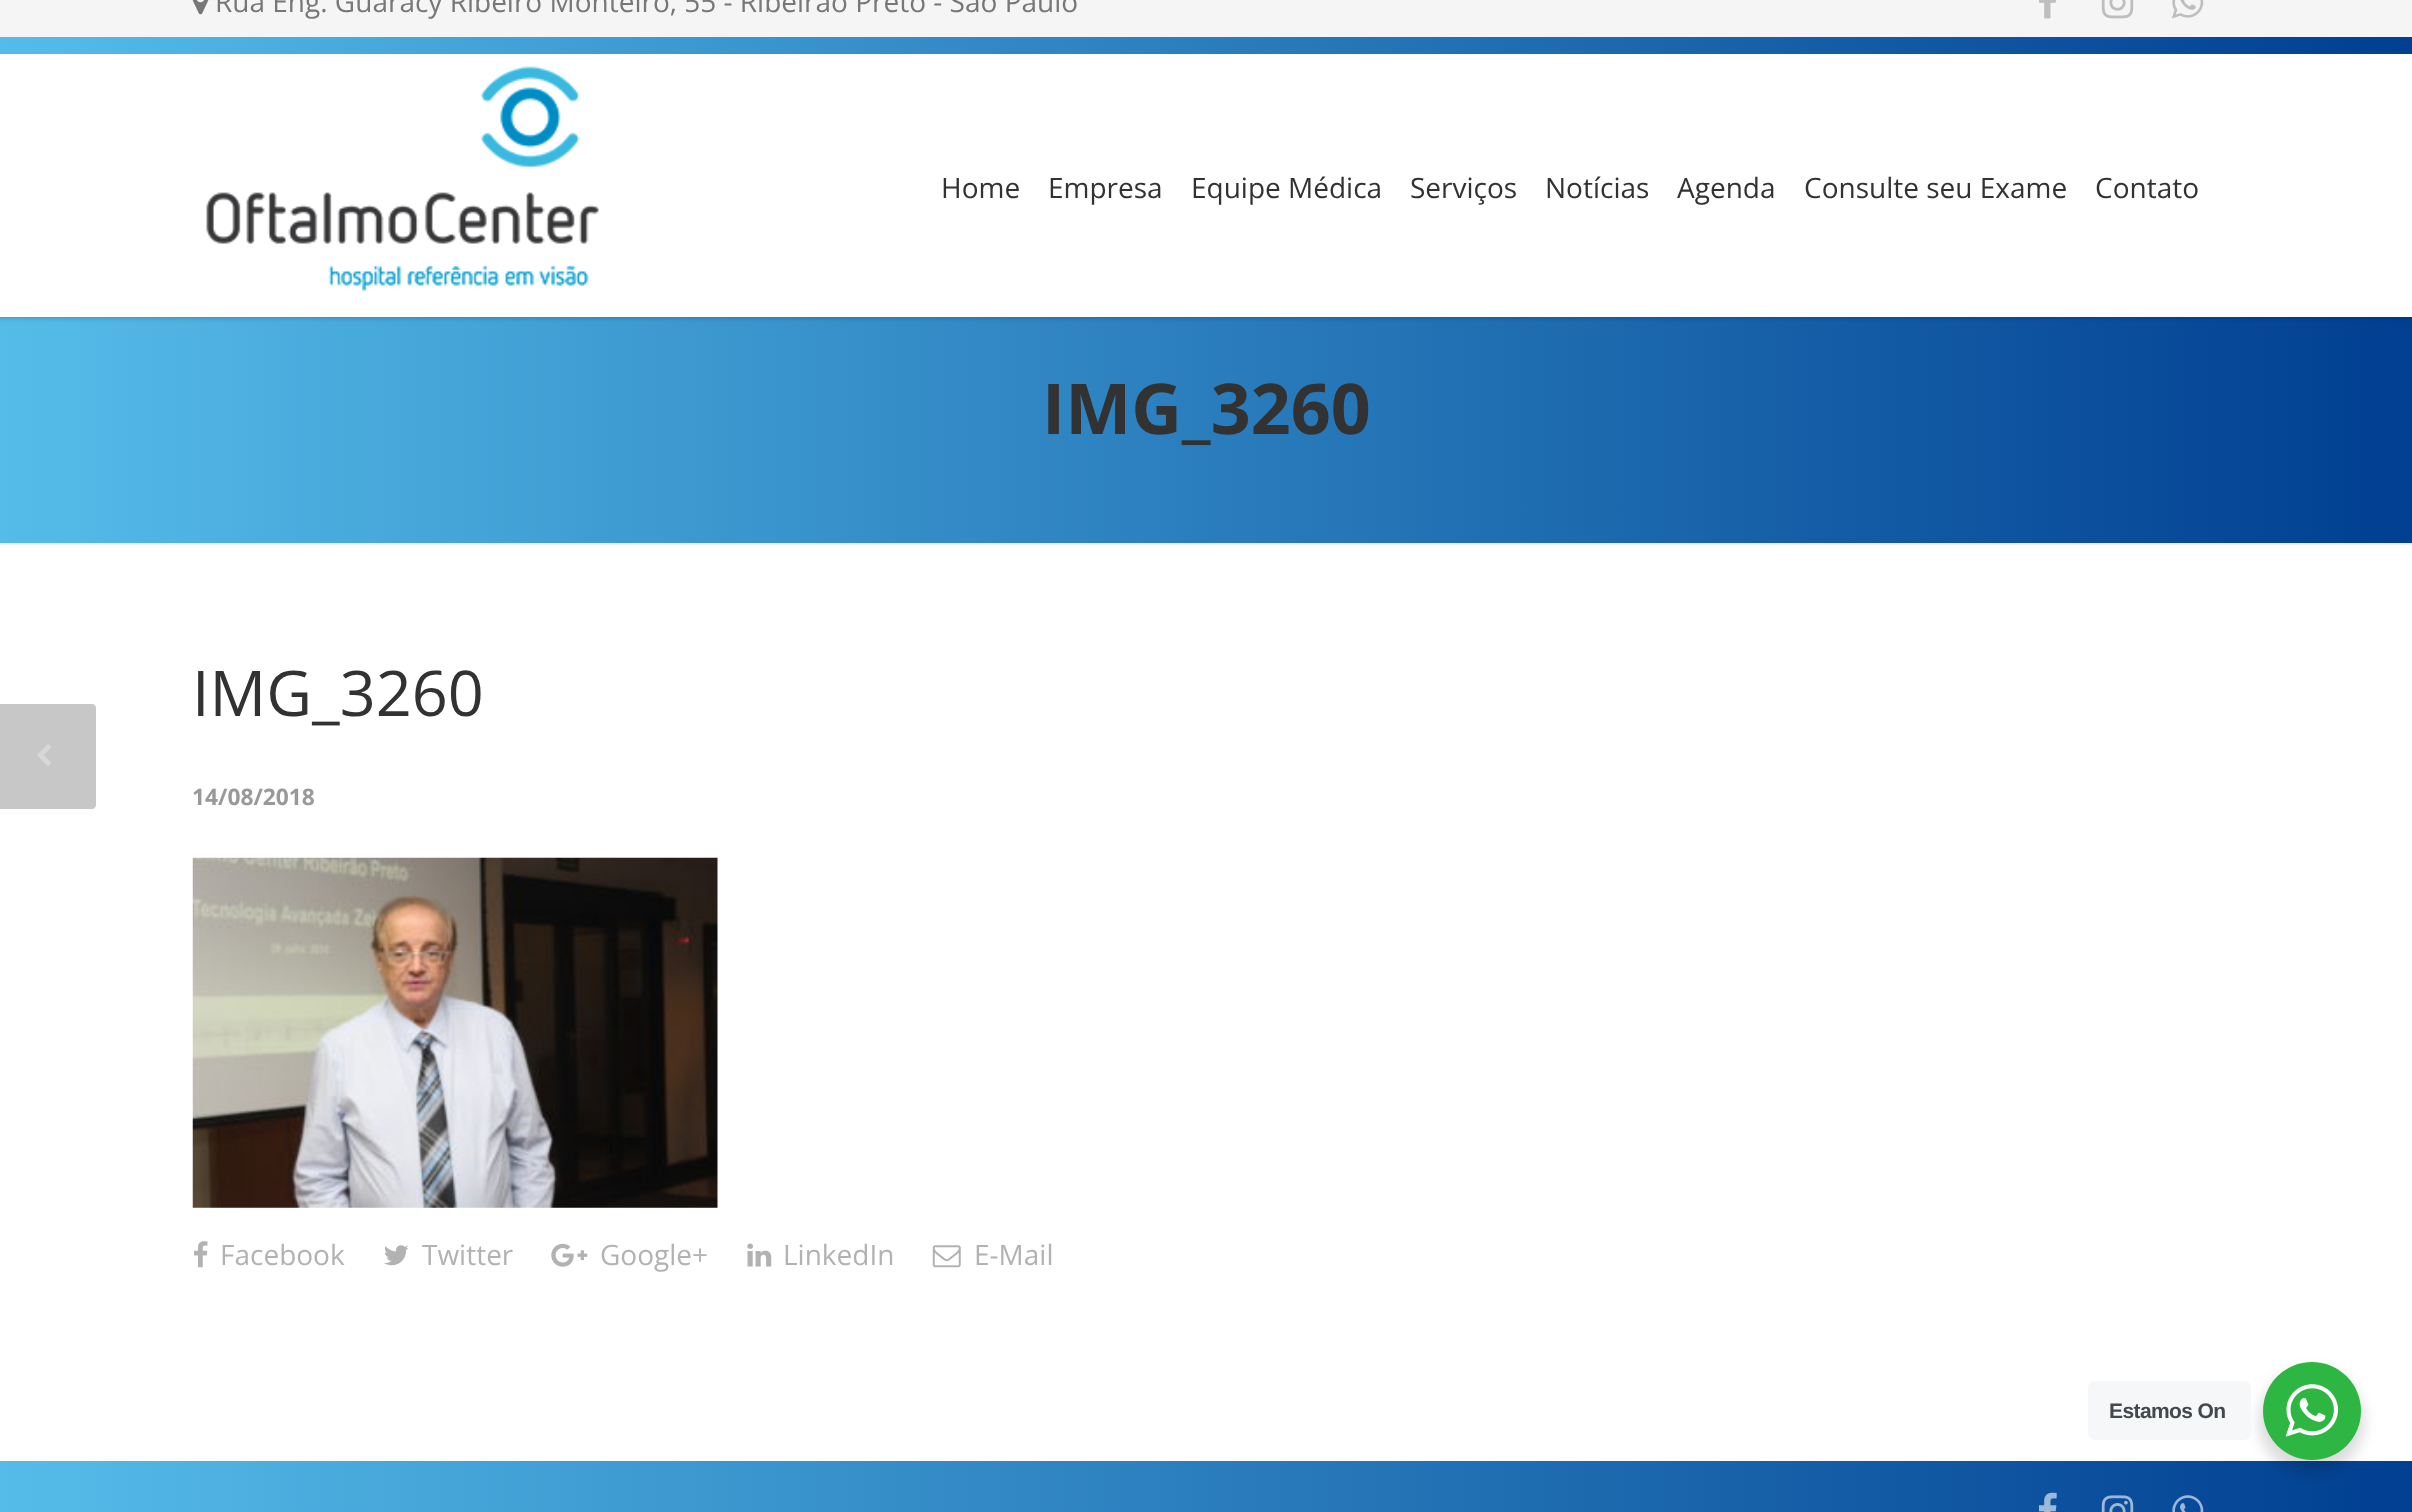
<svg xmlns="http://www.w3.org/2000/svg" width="2412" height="1512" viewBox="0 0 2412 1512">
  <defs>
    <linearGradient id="g1" gradientUnits="userSpaceOnUse" x1="0" y1="430" x2="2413" y2="430"><stop offset="0" stop-color="#55bce9"/><stop offset="1" stop-color="#003f91"/></linearGradient>
    <filter id="blur1" x="-50%" y="-200%" width="200%" height="500%"><feGaussianBlur stdDeviation="2"/></filter>
    <linearGradient id="g2" gradientUnits="userSpaceOnUse" x1="0" y1="46" x2="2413" y2="45"><stop offset="0" stop-color="#55bce9"/><stop offset="1" stop-color="#003f91"/></linearGradient>
    <linearGradient id="g3" gradientUnits="userSpaceOnUse" x1="0" y1="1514" x2="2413" y2="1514"><stop offset="0" stop-color="#55bce9"/><stop offset="1" stop-color="#003f91"/></linearGradient>
    <filter id="blur2" x="-50%" y="-200%" width="200%" height="500%"><feGaussianBlur stdDeviation="7"/></filter>
  </defs>
  <rect width="100%" height="100%" fill="#ffffff"/>
  <rect x="0" y="317" width="2412" height="226" fill="url(#g1)"/>
  <rect x="-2" y="35" width="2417" height="284" fill="#000000" fill-opacity="0.16" filter="url(#blur1)"/>
  <rect x="0" y="0" width="2412" height="37" fill="#f5f5f5"/>
  <image x="192" y="0" width="17" height="15" href="img1.png"/>
  <text x="215" y="12" font-family="Open Sans" font-size="28" fill="#777777">Rua Eng. Guaracy Ribeiro Monteiro, 55 - Ribeirão Preto - São Paulo</text>
  <image x="2039" y="0" width="17" height="19" href="img2.png"/>
  <image x="2101" y="0" width="33" height="19" href="img3.png"/>
  <image x="2172" y="0" width="32" height="19" href="img4.png"/>
  <rect x="0" y="54" width="2412" height="263" fill="#ffffff"/>
  <rect x="0" y="37" width="2412" height="17" fill="url(#g2)"/>
  <image x="206" y="66" width="393" height="226" href="img5.png"/>
  <text x="941" y="198" font-family="Open Sans" font-size="28" fill="#323232">Home</text>
  <text x="1048" y="198" font-family="Open Sans" font-size="28" fill="#323232">Empresa</text>
  <text x="1191" y="198" font-family="Open Sans" font-size="28" fill="#323232">Equipe Médica</text>
  <text x="1410" y="198" font-family="Open Sans" font-size="28" fill="#323232">Serviços</text>
  <text x="1545" y="198" font-family="Open Sans" font-size="28" fill="#323232">Notícias</text>
  <text x="1677" y="198" font-family="Open Sans" font-size="28" fill="#323232">Agenda</text>
  <text x="1804" y="198" font-family="Open Sans" font-size="28" fill="#323232">Consulte seu Exame</text>
  <text x="2095" y="198" font-family="Open Sans" font-size="28" fill="#323232">Contato</text>
  <rect x="0" y="543" width="2412" height="2" fill="#efefef"/>
  <text x="1042" y="434" font-family="Open Sans" font-size="70" font-weight="bold" fill="#323232">IMG_3260</text>
  <path d="M-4 704H92C94 704 96 706 96 708V805C96 807 94 809 92 809H-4Z" fill="#c7c7c7"/>
  <image x="37" y="744" width="14" height="22" href="img6.png"/>
  <text x="192" y="716" font-family="Open Sans" font-size="63" fill="#323232">IMG_3260</text>
  <text x="192" y="805" font-family="Open Sans" font-size="22.75" font-weight="bold" fill="#999999">14/08/2018</text>
  <image x="192" y="857" width="526" height="351" href="img7.png"/>
  <image x="194" y="1241" width="14" height="27" href="img8.png"/>
  <text x="220" y="1265" font-family="Open Sans" font-size="28" fill="#b2b2b2">Facebook</text>
  <image x="384" y="1245" width="25" height="21" href="img9.png"/>
  <text x="422" y="1265" font-family="Open Sans" font-size="28" fill="#b2b2b2">Twitter</text>
  <image x="551" y="1243" width="37" height="24" href="img10.png"/>
  <text x="600" y="1265" font-family="Open Sans" font-size="28" fill="#b2b2b2">Google+</text>
  <image x="747" y="1243" width="25" height="24" href="img11.png"/>
  <text x="783" y="1265" font-family="Open Sans" font-size="28" fill="#b2b2b2">LinkedIn</text>
  <image x="932" y="1245" width="29" height="23" href="img12.png"/>
  <text x="974" y="1265" font-family="Open Sans" font-size="28" fill="#b2b2b2">E-Mail</text>
  <rect x="0" y="1461" width="2412" height="51" fill="url(#g3)"/>
  <image x="2038" y="1492" width="19" height="20" href="img13.png"/>
  <image x="2101" y="1495" width="33" height="17" href="img14.png"/>
  <image x="2172" y="1495" width="32" height="17" href="img15.png"/>
  <rect x="2259" y="1369" width="105" height="105" rx="52.5" fill="#000000" fill-opacity="0.14" filter="url(#blur2)"/>
  <rect x="2088" y="1381" width="163" height="59" rx="7" fill="#f5f7f9"/>
  <text x="2109" y="1418" font-family="Liberation Sans" font-size="21" font-weight="bold" letter-spacing="-0.6" fill="#43474e">Estamos On</text>
  <circle cx="2312" cy="1411" r="49" fill="#2db742"/>
  <image x="2286" y="1384" width="52" height="53" href="img16.png"/>
</svg>
